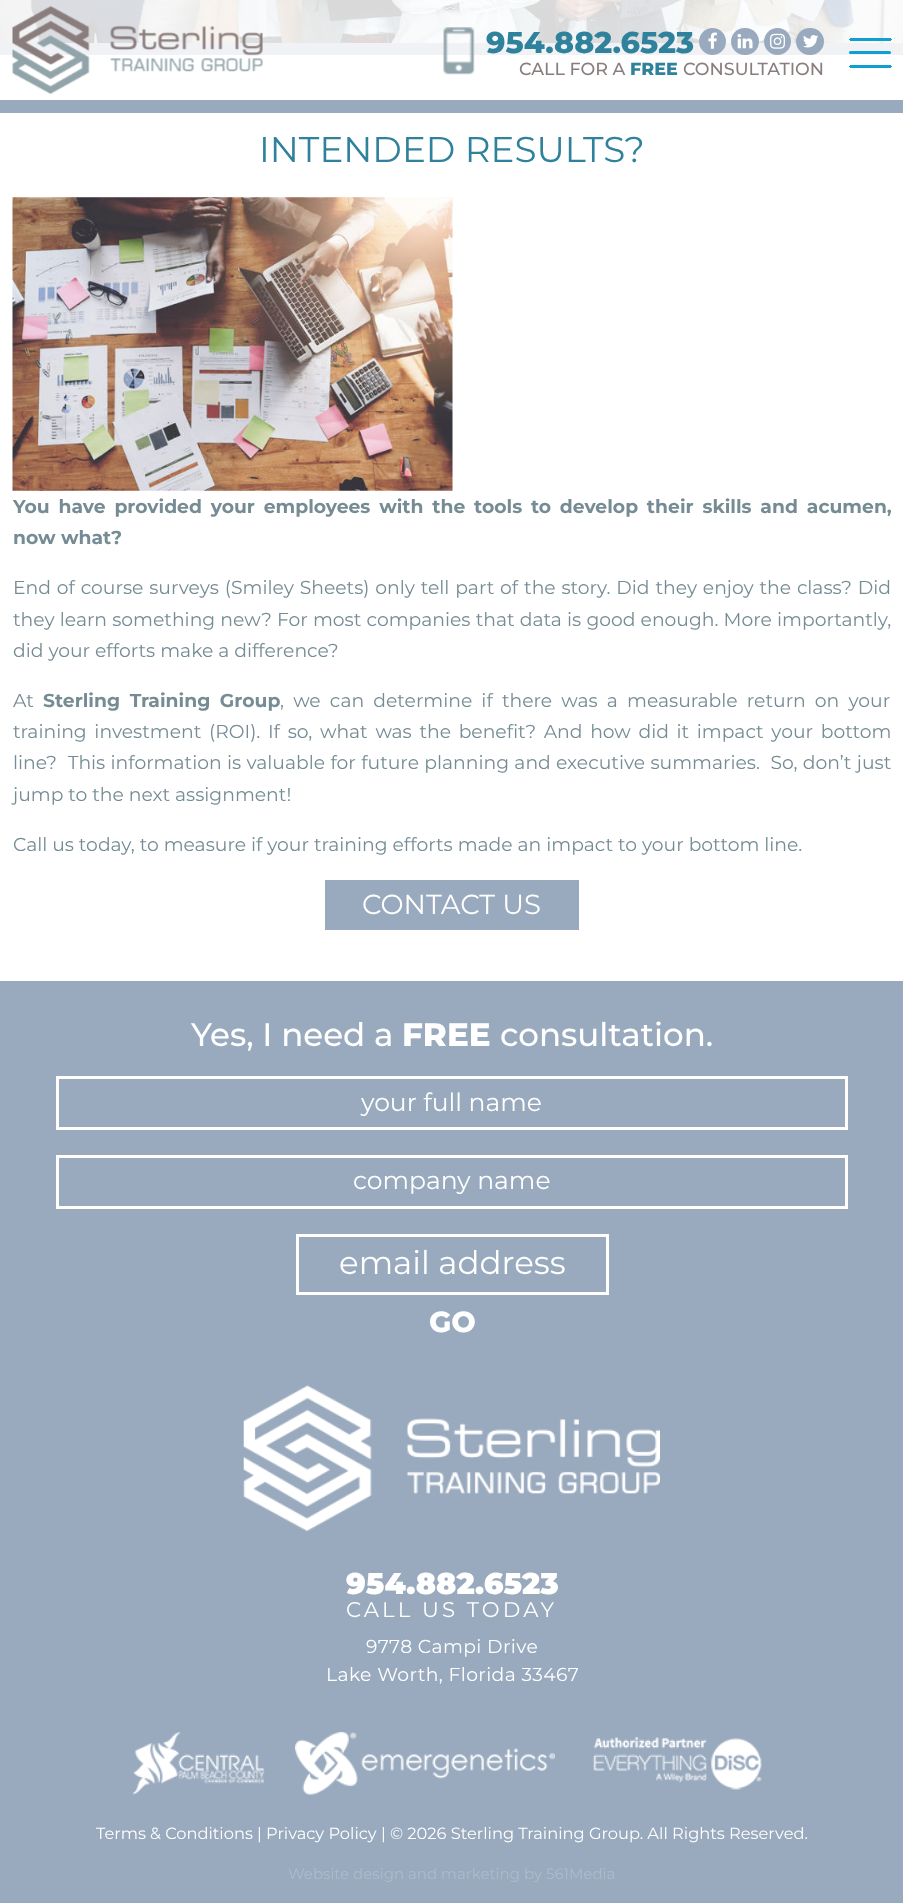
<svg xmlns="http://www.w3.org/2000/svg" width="903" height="1903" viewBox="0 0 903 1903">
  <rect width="100%" height="100%" fill="#ffffff"/>
  <image x="0" y="0" width="903" height="43" href="img7.png"/>
  <rect x="0" y="43" width="903" height="12" fill="#99aabe"/>
  <rect x="0" y="0" width="903" height="55" fill="#ffffff" fill-opacity="0.85"/>
  <rect x="0" y="100" width="903" height="13" fill="#99aabe"/>
  <image x="12" y="6" width="251" height="89" href="img1.png"/>
  <image x="443" y="27" width="32" height="48" href="img2.png"/>
  <text x="486" y="53" font-family="Montserrat" font-size="30" font-weight="800" fill="#30829c">954.882.6523</text>
  <circle cx="712.5" cy="41.5" r="13.5" fill="#99aabe"/>
  <image x="708" y="32" width="9" height="17" href="img3.png"/>
  <rect x="731" y="28" width="28" height="27" rx="13.5" fill="#99aabe"/>
  <image x="737" y="34" width="16" height="15" href="img4.png"/>
  <circle cx="777.5" cy="41.5" r="13.5" fill="#99aabe"/>
  <image x="770" y="33" width="15" height="16" href="img5.png"/>
  <rect x="796" y="28" width="28" height="27" rx="13.5" fill="#99aabe"/>
  <image x="803" y="35" width="16" height="13" href="img6.png"/>
  <text x="519" y="75" font-family="Montserrat" font-size="17.5" font-weight="500" fill="#8a7d7d">CALL FOR A</text>
  <text x="630" y="75" font-family="Montserrat" font-size="17.5" font-weight="800" fill="#30829c">FREE</text>
  <text x="683" y="75" font-family="Montserrat" font-size="17.5" font-weight="500" fill="#8a7d7d">CONSULTATION</text>
  <rect x="850" y="38" width="41" height="3" fill="#0f9fd0"/>
  <rect x="889" y="39" width="3" height="1" fill="#0f9fd0"/>
  <rect x="849" y="39" width="3" height="1" fill="#0f9fd0"/>
  <rect x="849" y="51" width="42" height="3" rx="1.5" fill="#0f9fd0"/>
  <rect x="889" y="66" width="3" height="1" fill="#0f9fd0"/>
  <rect x="850" y="65" width="41" height="3" fill="#0f9fd0"/>
  <rect x="849" y="66" width="3" height="1" fill="#0f9fd0"/>
  <text x="259" y="162" font-family="Montserrat" font-size="35.75" fill="#30829c">INTENDED RESULTS?</text>
  <image x="12" y="197" width="441" height="294" href="img8.png"/>
  <text x="13" y="513" word-spacing="3.5" font-family="Montserrat" font-size="18.75" font-weight="bold" fill="#768c94">You have provided your employees with the tools to develop their skills and acumen,</text>
  <text x="13" y="544" font-family="Montserrat" font-size="18.75" font-weight="bold" fill="#768c94">now what?</text>
  <text x="13" y="594" word-spacing="0.9" font-family="Montserrat" font-size="18.75" fill="#768c94">End of course surveys (Smiley Sheets) only tell part of the story. Did they enjoy the class? Did</text>
  <text x="13" y="626" word-spacing="0.25" font-family="Montserrat" font-size="18.75" fill="#768c94">they learn something new? For most companies that data is good enough. More importantly,</text>
  <text x="13" y="657" font-family="Montserrat" font-size="18.75" fill="#768c94">did your efforts make a difference?</text>
  <text x="13" y="707" font-family="Montserrat" font-size="18.75" fill="#768c94">At</text>
  <text x="43" y="707" word-spacing="4.25" font-family="Montserrat" font-size="18.75" font-weight="bold" fill="#768c94">Sterling Training Group</text>
  <text x="280" y="707" word-spacing="4.25" font-family="Montserrat" font-size="18.75" fill="#768c94">, we can determine if there was a measurable return on your</text>
  <text x="13" y="738" word-spacing="2.75" font-family="Montserrat" font-size="18.75" fill="#768c94">training investment (ROI). If so, what was the benefit? And how did it impact your bottom</text>
  <text x="13" y="769" word-spacing="0.4" font-family="Montserrat" font-size="18.75" fill="#768c94" xml:space="preserve">line?  This information is valuable for future planning and executive summaries.  So, don’t just</text>
  <text x="13" y="801" font-family="Montserrat" font-size="18.75" fill="#768c94">jump to the next assignment!</text>
  <text x="13" y="851" font-family="Montserrat" font-size="18.75" fill="#768c94">Call us today, to measure if your training efforts made an impact to your bottom line.</text>
  <rect x="325" y="880" width="254" height="50" fill="#99aabe"/>
  <text x="362" y="914" font-family="Montserrat" font-size="27.5" fill="#ffffff">CONTACT US</text>
  <rect x="0" y="981" width="903" height="922" fill="#99aabe"/>
  <text x="191" y="1046" font-family="Montserrat" font-size="32.5" font-weight="500" fill="#ffffff">Yes, I need a</text>
  <text x="402" y="1046" font-family="Montserrat" font-size="32.5" font-weight="800" fill="#ffffff">FREE</text>
  <text x="500" y="1046" font-family="Montserrat" font-size="32.5" font-weight="500" fill="#ffffff">consultation.</text>
  <rect x="57.5" y="1077.5" width="789" height="51" fill="none" stroke="#ffffff" stroke-width="3"/>
  <text x="361" y="1111" font-family="Montserrat" font-size="25" fill="#ffffff">your full name</text>
  <rect x="57.5" y="1156.5" width="789" height="51" fill="none" stroke="#ffffff" stroke-width="3"/>
  <text x="353" y="1189" font-family="Montserrat" font-size="25" fill="#ffffff">company name</text>
  <rect x="297.5" y="1235.5" width="310" height="58" fill="none" stroke="#ffffff" stroke-width="3"/>
  <text x="339" y="1274" font-family="Montserrat" font-size="32.5" fill="#ffffff">email address</text>
  <text x="429" y="1332" font-family="Montserrat" font-size="29" font-weight="800" fill="#ffffff">GO</text>
  <image x="243" y="1385" width="417" height="146" href="img9.png"/>
  <text x="346" y="1594" font-family="Montserrat" font-size="30" font-weight="900" fill="#ffffff">954.882.6523</text>
  <text x="346" y="1617" font-family="Montserrat" font-size="21.25" letter-spacing="3.1" fill="#ffffff">CALL US TODAY</text>
  <text x="366" y="1653" font-family="Montserrat" font-size="18.75" letter-spacing="0.4" fill="#ffffff">9778 Campi Drive</text>
  <text x="326" y="1681" font-family="Montserrat" font-size="18.75" letter-spacing="0.4" fill="#ffffff">Lake Worth, Florida 33467</text>
  <image x="132" y="1732" width="133" height="63" href="img10.png"/>
  <image x="295" y="1732" width="260" height="63" href="img11.png"/>
  <image x="593" y="1737" width="169" height="53" href="img12.png"/>
  <text x="96" y="1839" font-family="Montserrat" font-size="16.25" fill="#ffffff">Terms &amp; Conditions | Privacy Policy | © 2026 Sterling Training Group. All Rights Reserved.</text>
  <text x="288" y="1879" font-family="Montserrat" font-size="15" fill="#adbbcb">Website design and marketing by 561Media</text>
</svg>
